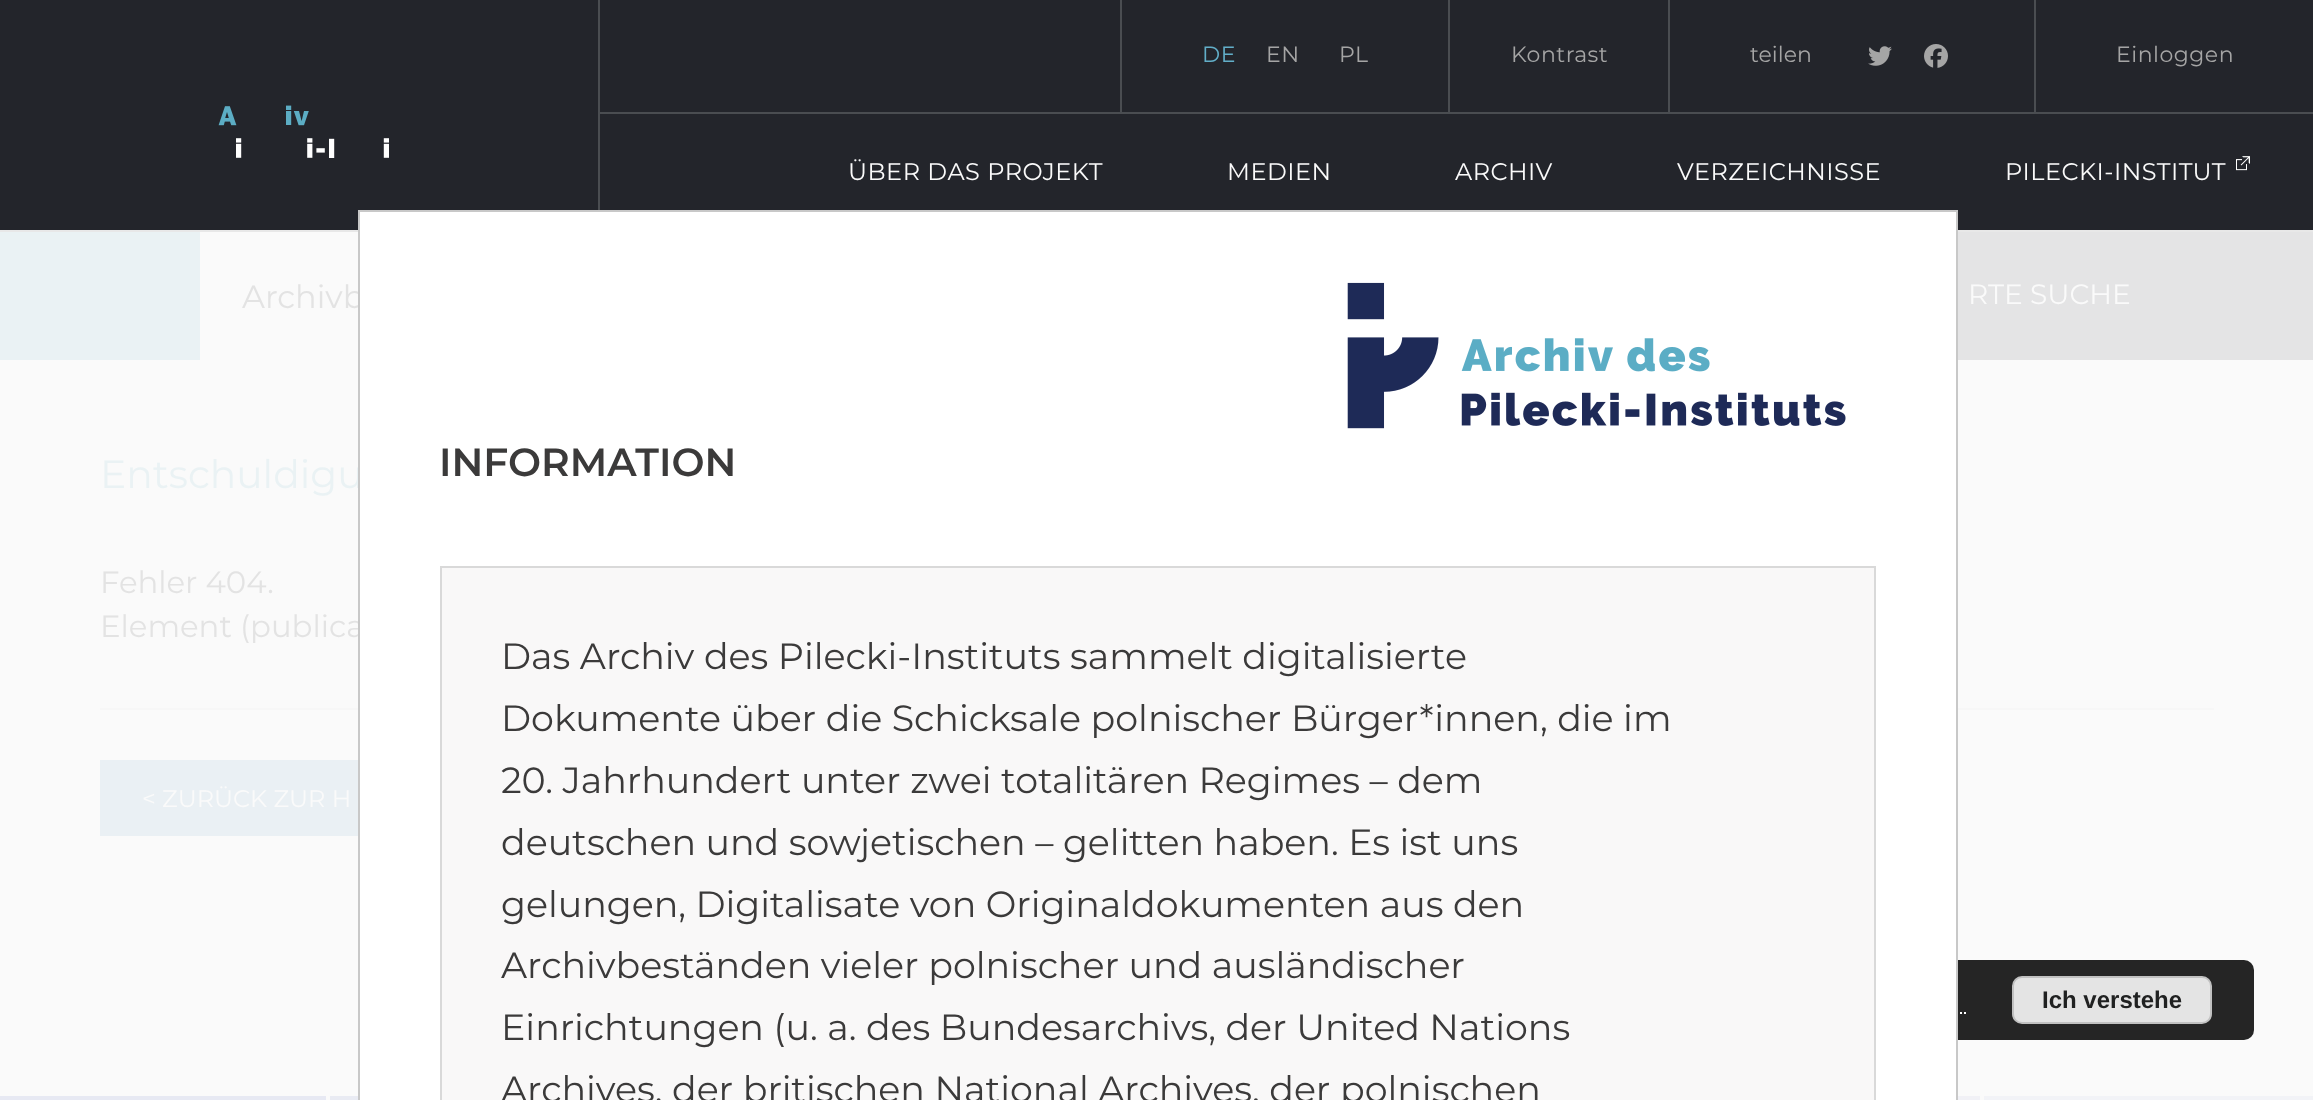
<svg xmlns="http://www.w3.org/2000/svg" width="2313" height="1100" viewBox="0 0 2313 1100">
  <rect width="100%" height="100%" fill="#fafafa"/>
  <rect x="0" y="0" width="2313" height="230" fill="#23252b"/>
  <rect x="598" y="0" width="2" height="210" fill="#4a4d51"/>
  <image x="218" y="105" width="171" height="53" href="img1.png"/>
  <rect x="1120" y="0" width="2" height="112" fill="#4a4d51"/>
  <text x="1202" y="62" font-family="Montserrat" font-size="22" letter-spacing="0.5" fill="#62aec8">DE</text>
  <text x="1266" y="62" font-family="Montserrat" font-size="22" letter-spacing="0.5" fill="#a5a5a5">EN</text>
  <text x="1339" y="62" font-family="Montserrat" font-size="22" letter-spacing="0.5" fill="#a5a5a5">PL</text>
  <rect x="1448" y="0" width="2" height="112" fill="#4a4d51"/>
  <text x="1511" y="62" font-family="Montserrat" font-size="22" letter-spacing="0.5" fill="#a5a5a5">Kontrast</text>
  <rect x="1668" y="0" width="2" height="112" fill="#4a4d51"/>
  <text x="1750" y="62" font-family="Montserrat" font-size="22" fill="#a5a5a5">teilen</text>
  <image x="1868" y="46" width="24" height="20" href="img2.png"/>
  <image x="1924" y="44" width="24" height="24" href="img3.png"/>
  <rect x="2034" y="0" width="2" height="112" fill="#4a4d51"/>
  <text x="2116" y="62" font-family="Montserrat" font-size="22" letter-spacing="0.5" fill="#a5a5a5">Einloggen</text>
  <rect x="600" y="112" width="1713" height="2" fill="#4a4d51"/>
  <text x="848" y="180" font-family="Montserrat" font-size="24" letter-spacing="0.5" fill="#fafafa">ÜBER DAS PROJEKT</text>
  <text x="1227" y="180" font-family="Montserrat" font-size="24" letter-spacing="0.5" fill="#fafafa">MEDIEN</text>
  <text x="1455" y="180" font-family="Montserrat" font-size="24" letter-spacing="0.5" fill="#fafafa">ARCHIV</text>
  <text x="1677" y="180" font-family="Montserrat" font-size="24" letter-spacing="0.5" fill="#fafafa">VERZEICHNISSE</text>
  <text x="2005" y="180" font-family="Montserrat" font-size="24" letter-spacing="0.5" fill="#fafafa">PILECKI-INSTITUT</text>
  <image x="2236" y="156" width="14" height="15" href="img4.png"/>
  <rect x="0" y="230" width="2313" height="2" fill="#e8e8e8"/>
  <rect x="0" y="232" width="200" height="128" fill="#eaf2f4"/>
  <text x="242" y="308" font-family="Montserrat" font-size="32" fill="#e3e3e3">Archivb</text>
  <rect x="1958" y="232" width="355" height="128" fill="#e4e4e5"/>
  <text x="1968" y="304" font-family="Montserrat" font-size="28" fill="#fafafa">RTE SUCHE</text>
  <rect x="100" y="708" width="2114" height="2" fill="#f7f7f7"/>
  <text x="100" y="488" font-family="Montserrat" font-size="39.25" fill="#eaf2f4">Entschuldigu</text>
  <text x="100" y="593" font-family="Montserrat" font-size="30.75" fill="#e3e3e3">Fehler 404.</text>
  <text x="100" y="637" font-family="Montserrat" font-size="30.75" fill="#e3e3e3">Element (publica</text>
  <rect x="100" y="760" width="258" height="76" fill="#eaf0f4"/>
  <text x="142" y="807" font-family="Montserrat" font-size="24" fill="#fafafa">&lt; ZURÜCK ZUR H</text>
  <rect x="1382" y="960" width="872" height="80" rx="10" fill="#252525"/>
  <path d="M1760 1013H1966" fill="none" stroke="#ffffff" stroke-width="2" stroke-dasharray="2 2"/>
  <rect x="359" y="211" width="1598" height="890" fill="#ffffff" stroke="#c8c8c8" stroke-width="2"/>
  <image x="1347" y="282" width="499" height="147" href="img5.png"/>
  <text x="439" y="476" font-family="Montserrat" font-size="39.25" font-weight="600" fill="#3b3a3a">INFORMATION</text>
  <rect x="441" y="567" width="1434" height="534" fill="#f9f8f8" stroke="#d9d9d9" stroke-width="2"/>
  <text x="501" y="669" font-family="Montserrat" font-size="36.4" fill="#3b3a3a">Das Archiv des Pilecki-Instituts sammelt digitalisierte</text>
  <text x="501" y="731" font-family="Montserrat" font-size="36.4" fill="#3b3a3a">Dokumente über die Schicksale polnischer Bürger*innen, die im</text>
  <text x="501" y="793" font-family="Montserrat" font-size="36.4" fill="#3b3a3a">20. Jahrhundert unter zwei totalitären Regimes – dem</text>
  <text x="501" y="855" font-family="Montserrat" font-size="36.4" fill="#3b3a3a">deutschen und sowjetischen – gelitten haben. Es ist uns</text>
  <text x="501" y="917" font-family="Montserrat" font-size="36.4" fill="#3b3a3a">gelungen, Digitalisate von Originaldokumenten aus den</text>
  <text x="501" y="978" font-family="Montserrat" font-size="36.4" fill="#3b3a3a">Archivbeständen vieler polnischer und ausländischer</text>
  <text x="501" y="1040" font-family="Montserrat" font-size="36.4" fill="#3b3a3a">Einrichtungen (u. a. des Bundesarchivs, der United Nations</text>
  <text x="501" y="1102" font-family="Montserrat" font-size="36.4" fill="#3b3a3a">Archives, der britischen National Archives, der polnischen</text>
  <rect x="2013" y="977" width="198" height="46" rx="9" fill="#e4e4e4" stroke="#c1c1c1" stroke-width="2"/>
  <text x="2042" y="1008" font-family="Liberation Sans" font-size="24" font-weight="bold" fill="#202121">Ich verstehe</text>
  <rect x="0" y="1096" width="330" height="4" fill="#e7e9f3"/>
  <rect x="326" y="1096" width="4" height="4" fill="#fafafa"/>
  <rect x="330" y="1096" width="28" height="4" fill="#e9ebf3"/>
  <rect x="1958" y="1096" width="26" height="4" fill="#f1f1f6"/>
  <rect x="1980" y="1096" width="4" height="4" fill="#fafafa"/>
  <rect x="1984" y="1096" width="329" height="4" fill="#f2f3f7"/>
</svg>
